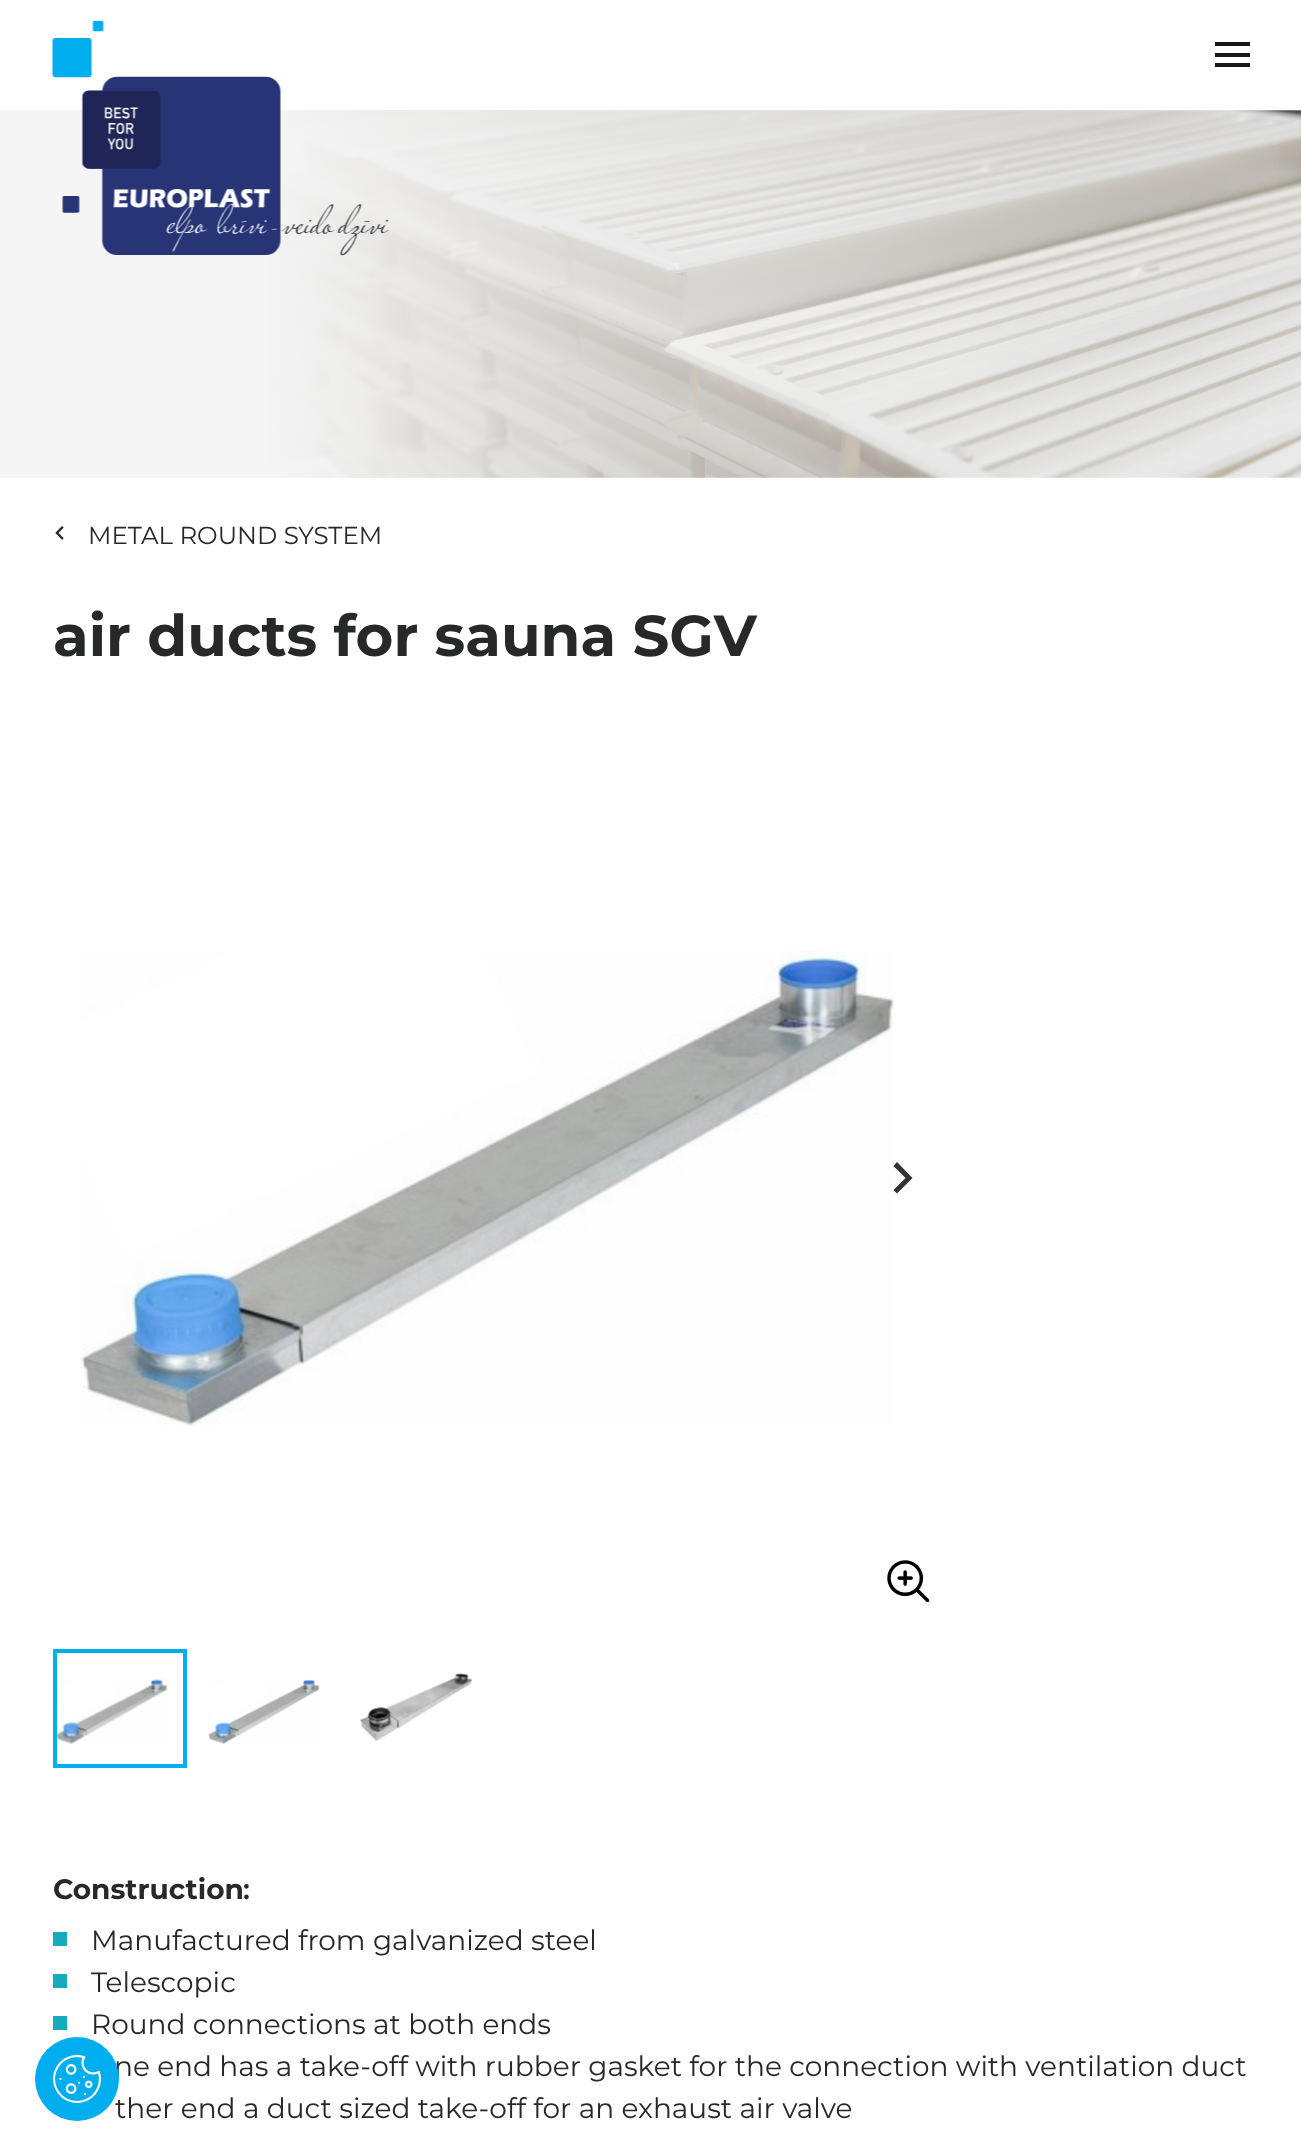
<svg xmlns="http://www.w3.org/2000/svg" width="1301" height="2155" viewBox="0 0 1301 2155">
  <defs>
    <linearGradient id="g1" gradientUnits="userSpaceOnUse" x1="0" y1="294" x2="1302" y2="294"><stop offset="0.2" stop-color="#f5f5f5"/><stop offset="1" stop-color="#f5f5f5" stop-opacity="0"/></linearGradient>
  </defs>
  <rect width="100%" height="100%" fill="#ffffff"/>
  <image x="267" y="110" width="1034" height="368" href="img2.png"/>
  <rect x="0" y="110" width="1279" height="368" fill="url(#g1)"/>
  <image x="52" y="21" width="337" height="235" href="img1.png"/>
  <rect x="1215" y="42" width="35" height="4" fill="#181818"/>
  <rect x="1215" y="53" width="35" height="4" fill="#181818"/>
  <rect x="1215" y="63" width="35" height="4" fill="#181818"/>
  <image x="55" y="526" width="9" height="14" href="img3.png"/>
  <text x="88" y="544" font-family="Montserrat" font-size="24.5" fill="#27282a">METAL ROUND SYSTEM</text>
  <text x="53" y="656" font-family="Montserrat" font-size="57.75" font-weight="bold" fill="#27282a">air ducts for sauna SGV</text>
  <image x="80" y="950" width="814" height="476" href="img4.png"/>
  <image x="887" y="1560" width="43" height="43" href="img5.png"/>
  <path d="M893.5 1190L905.5 1178L893.5 1166L897 1162L912.5 1178L897 1193.5Z" fill="#333333"/>
  <image x="57" y="1679" width="111" height="66" href="img6.png"/>
  <rect x="55" y="1651" width="130" height="115" fill="none" stroke="#00adef" stroke-width="4"/>
  <image x="208" y="1679" width="112" height="65" href="img7.png"/>
  <image x="360" y="1673" width="112" height="68" href="img8.png"/>
  <text x="53" y="1899" font-family="Montserrat" font-size="28" font-weight="bold" fill="#27282a">Construction</text>
  <text x="243" y="1899" font-family="Montserrat" font-size="28" font-weight="600" fill="#27282a">:</text>
  <rect x="53" y="1932" width="14" height="14" fill="#14abbe"/>
  <text x="91" y="1950" font-family="Montserrat" font-size="28" fill="#27282a">Manufactured from galvanized steel</text>
  <rect x="53" y="1974" width="14" height="14" fill="#14abbe"/>
  <text x="91" y="1992" font-family="Montserrat" font-size="28" fill="#27282a">Telescopic</text>
  <rect x="53" y="2016" width="14" height="14" fill="#14abbe"/>
  <text x="91" y="2034" font-family="Montserrat" font-size="28" fill="#27282a">Round connections at both ends</text>
  <text x="114" y="2076" font-family="Montserrat" font-size="28" fill="#27282a">ne end has a take-off with rubber gasket for the connection with ventilation duct</text>
  <text x="115" y="2118" font-family="Montserrat" font-size="28" fill="#27282a">ther end a duct sized take-off for an exhaust air valve</text>
  <circle cx="77" cy="2079" r="42" fill="#00adef"/>
  <image x="53" y="2055" width="48" height="48" href="img9.png"/>
</svg>
